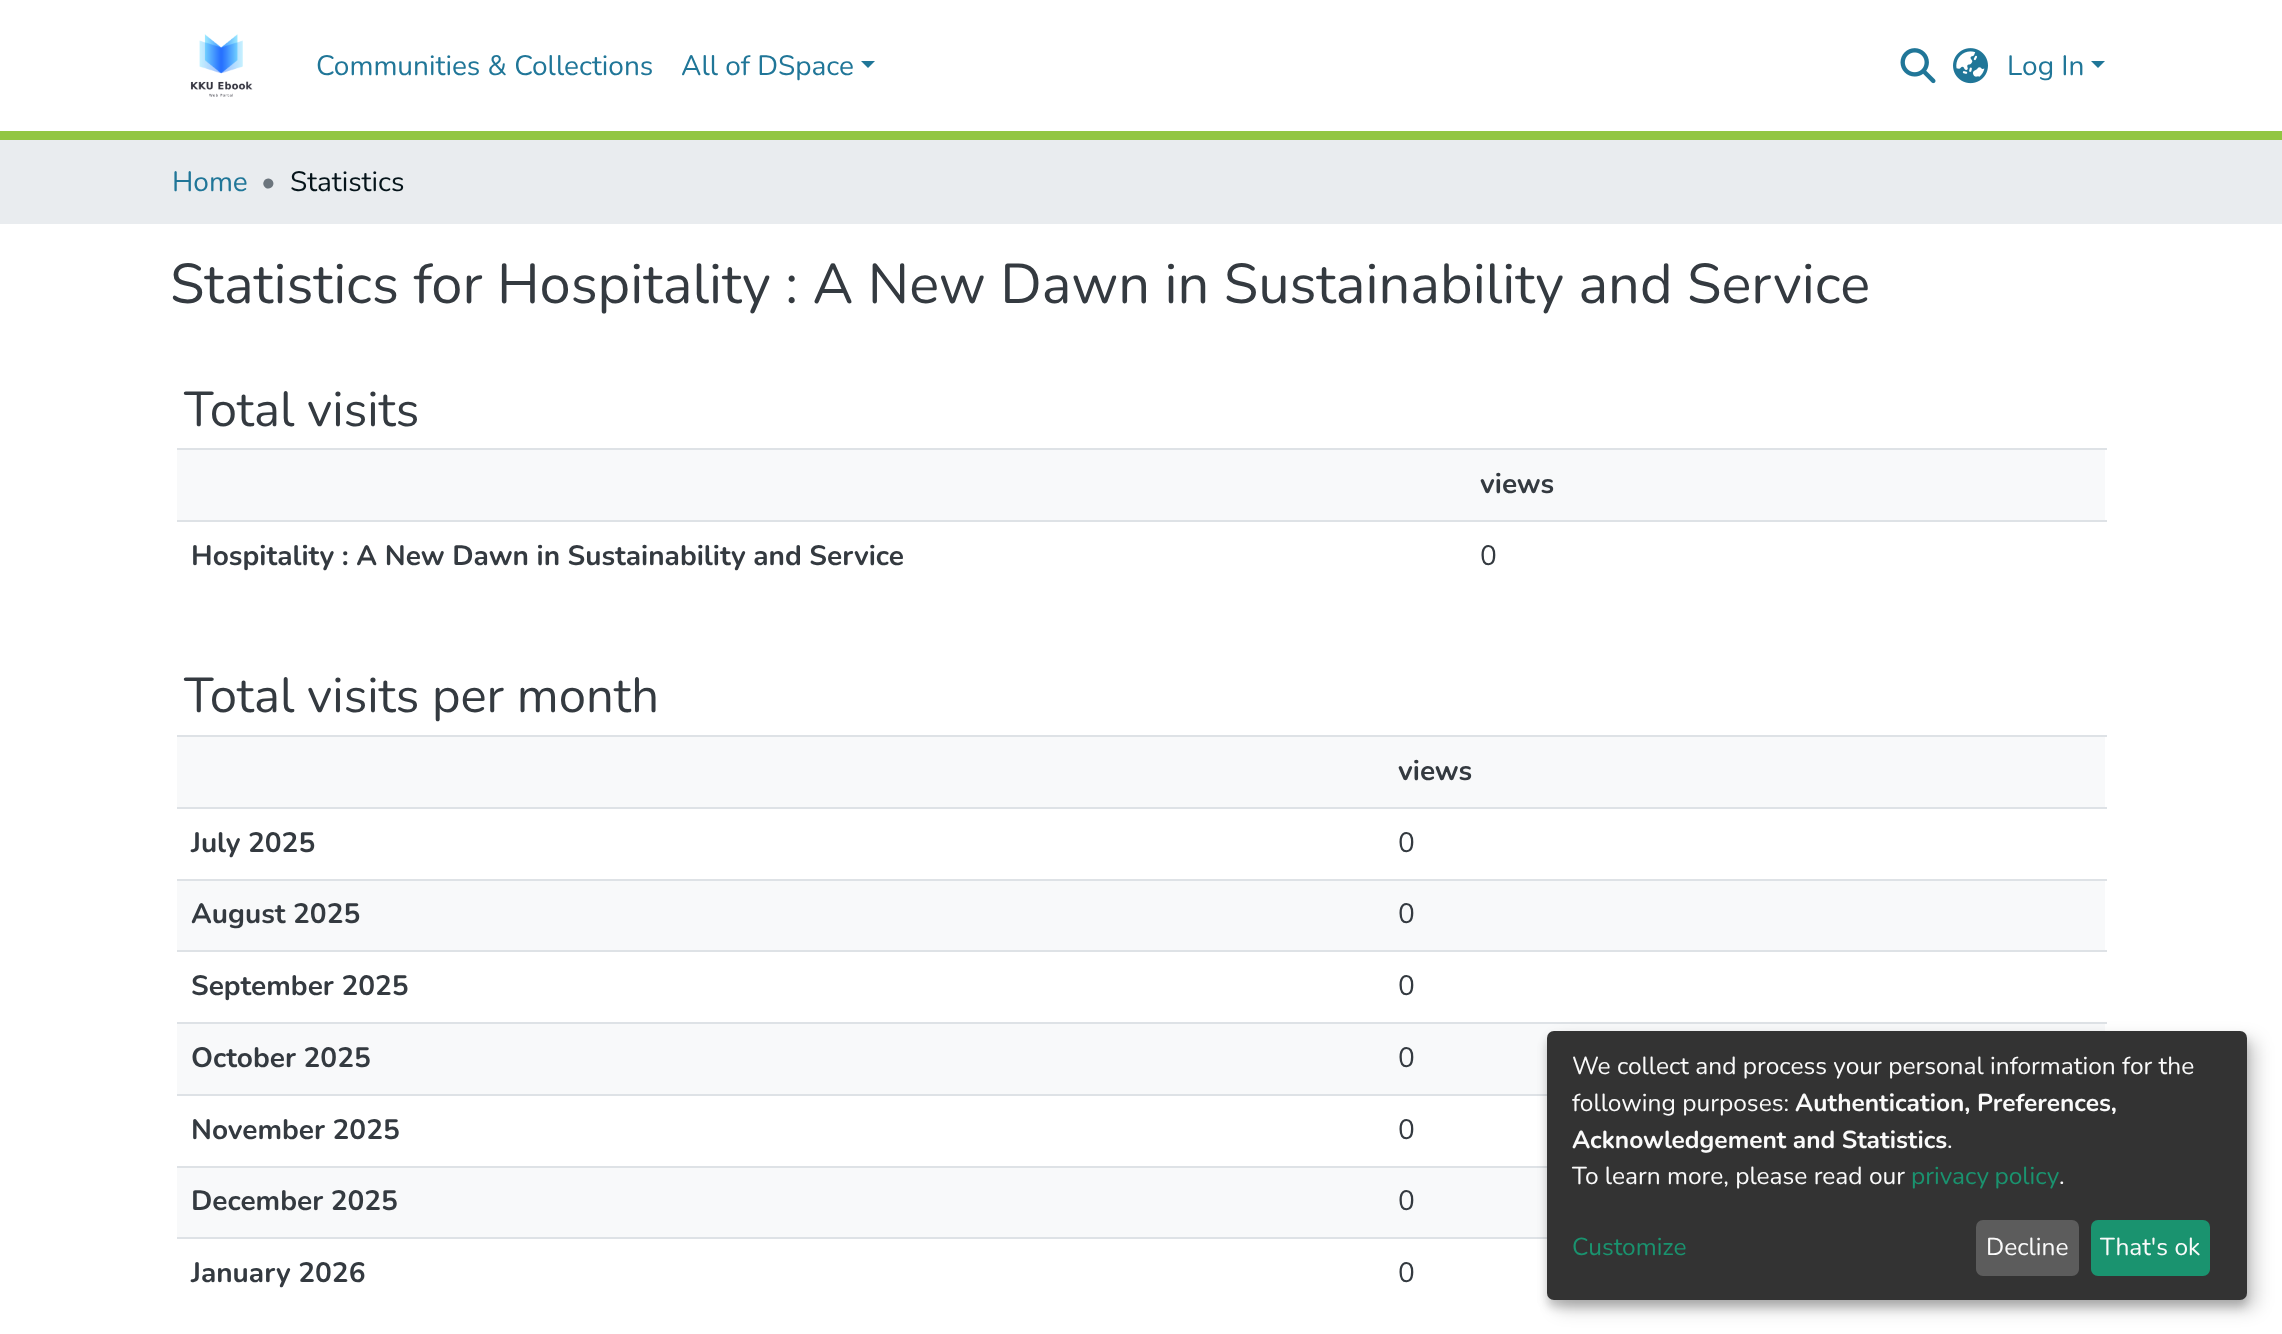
<svg xmlns="http://www.w3.org/2000/svg" width="2282" height="1334" viewBox="0 0 2282 1334">
  <defs>
    <filter id="blur1" x="-50%" y="-200%" width="200%" height="500%"><feGaussianBlur stdDeviation="9"/></filter>
    <filter id="blur2" x="-50%" y="-200%" width="200%" height="500%"><feGaussianBlur stdDeviation="5"/></filter>
  </defs>
  <rect width="100%" height="100%" fill="#ffffff"/>
  <rect x="0" y="131" width="2282" height="9" fill="#92c642"/>
  <image x="190" y="34" width="63" height="63" href="img1.png"/>
  <text x="316" y="75" font-family="Nunito" font-size="28" fill="#207698">Communities &amp; Collections</text>
  <text x="681" y="75" font-family="Nunito" font-size="28" fill="#207698">All of DSpace</text>
  <path d="M861 61H875L868 68Z" fill="#207698"/>
  <image x="1900" y="48" width="36" height="36" href="img2.png"/>
  <image x="1953" y="48" width="35" height="36" href="img3.png"/>
  <text x="2007" y="75" font-family="Nunito" font-size="28" fill="#207698">Log In</text>
  <path d="M2091 61H2105L2098 68Z" fill="#207698"/>
  <rect x="0" y="140" width="2282" height="84" fill="#e9ecef"/>
  <text x="172" y="191" font-family="Nunito" font-size="28" fill="#207698">Home</text>
  <text x="261" y="191" font-family="Nunito" font-size="28" fill="#6c757d">•</text>
  <text x="290" y="191" font-family="Nunito" font-size="28" fill="#05141a">Statistics</text>
  <text x="170" y="303" font-family="Nunito" font-size="56" fill="#343a40">Statistics for Hospitality : A New Dawn in Sustainability and Service</text>
  <text x="184" y="426" font-family="Nunito" font-size="49" fill="#343a40">Total visits</text>
  <rect x="177" y="450" width="1928" height="70" fill="#f8f9fa"/>
  <rect x="177" y="448" width="1930" height="2" fill="#dee2e6"/>
  <text x="1480" y="493" font-family="Nunito" font-size="28" font-weight="bold" fill="#343a40">views</text>
  <text x="191" y="565" font-family="Nunito" font-size="28" font-weight="bold" fill="#343a40">Hospitality : A New Dawn in Sustainability and Service</text>
  <rect x="177" y="520" width="1930" height="2" fill="#dee2e6"/>
  <text x="1480" y="565" font-family="Nunito" font-size="28" fill="#343a40">0</text>
  <text x="184" y="712" font-family="Nunito" font-size="49" fill="#343a40">Total visits per month</text>
  <rect x="177" y="737" width="1928" height="70" fill="#f8f9fa"/>
  <rect x="177" y="735" width="1930" height="2" fill="#dee2e6"/>
  <text x="1398" y="780" font-family="Nunito" font-size="28" font-weight="bold" fill="#343a40">views</text>
  <text x="191" y="852" font-family="Nunito" font-size="28" font-weight="bold" fill="#343a40">July 2025</text>
  <rect x="177" y="807" width="1930" height="2" fill="#dee2e6"/>
  <text x="1398" y="852" font-family="Nunito" font-size="28" fill="#343a40">0</text>
  <rect x="177" y="881" width="1928" height="69" fill="#f8f9fa"/>
  <text x="191" y="923" font-family="Nunito" font-size="28" font-weight="bold" fill="#343a40">August 2025</text>
  <rect x="177" y="879" width="1930" height="2" fill="#dee2e6"/>
  <text x="1398" y="923" font-family="Nunito" font-size="28" fill="#343a40">0</text>
  <text x="191" y="995" font-family="Nunito" font-size="28" font-weight="bold" fill="#343a40">September 2025</text>
  <rect x="177" y="950" width="1930" height="2" fill="#dee2e6"/>
  <text x="1398" y="995" font-family="Nunito" font-size="28" fill="#343a40">0</text>
  <rect x="177" y="1024" width="1928" height="70" fill="#f8f9fa"/>
  <text x="191" y="1067" font-family="Nunito" font-size="28" font-weight="bold" fill="#343a40">October 2025</text>
  <rect x="177" y="1022" width="1930" height="2" fill="#dee2e6"/>
  <text x="1398" y="1067" font-family="Nunito" font-size="28" fill="#343a40">0</text>
  <text x="191" y="1139" font-family="Nunito" font-size="28" font-weight="bold" fill="#343a40">November 2025</text>
  <rect x="177" y="1094" width="1370" height="2" fill="#dee2e6"/>
  <text x="1398" y="1139" font-family="Nunito" font-size="28" fill="#343a40">0</text>
  <rect x="177" y="1168" width="1370" height="69" fill="#f8f9fa"/>
  <text x="191" y="1210" font-family="Nunito" font-size="28" font-weight="bold" fill="#343a40">December 2025</text>
  <rect x="177" y="1166" width="1370" height="2" fill="#dee2e6"/>
  <text x="1398" y="1210" font-family="Nunito" font-size="28" fill="#343a40">0</text>
  <text x="191" y="1282" font-family="Nunito" font-size="28" font-weight="bold" fill="#343a40">January 2026</text>
  <rect x="177" y="1237" width="1370" height="2" fill="#dee2e6"/>
  <text x="1398" y="1282" font-family="Nunito" font-size="28" fill="#343a40">0</text>
  <rect x="1556" y="1040" width="700" height="269" rx="7" fill="#000000" fill-opacity="0.19" filter="url(#blur1)"/>
  <rect x="1547" y="1038" width="700" height="269" rx="7" fill="#000000" fill-opacity="0.2" filter="url(#blur2)"/>
  <rect x="1547" y="1031" width="700" height="269" rx="7" fill="#333333"/>
  <text x="1572" y="1074" font-family="Nunito" font-size="24.5" fill="#fafafa">We collect and process your personal information for the</text>
  <text x="1572" y="1111" font-family="Nunito" font-size="24.5" fill="#fafafa">following purposes:</text>
  <text x="1795" y="1111" font-family="Nunito" font-size="24.5" font-weight="bold" fill="#fafafa">Authentication, Preferences,</text>
  <text x="1572" y="1148" font-family="Nunito" font-size="24.5" font-weight="bold" fill="#fafafa">Acknowledgement and Statistics</text>
  <text x="1947" y="1148" font-family="Nunito" font-size="24.5" fill="#fafafa">.</text>
  <text x="1572" y="1184" font-family="Nunito" font-size="24.5" fill="#fafafa">To learn more, please read our</text>
  <text x="1911" y="1184" word-spacing="-1" font-family="Nunito" font-size="24.5" fill="#1a936f">privacy policy</text>
  <text x="2059" y="1184" font-family="Nunito" font-size="24.5" fill="#fafafa">.</text>
  <text x="1572" y="1255" font-family="Nunito" font-size="24.5" fill="#1a936f">Customize</text>
  <rect x="1976" y="1220" width="103" height="56" rx="7" fill="#5c5c5c"/>
  <text x="1986" y="1255" font-family="Nunito" font-size="24.5" fill="#fafafa">Decline</text>
  <rect x="2091" y="1220" width="119" height="56" rx="7" fill="#1a936f"/>
  <text x="2100" y="1255" font-family="Nunito" font-size="24.5" fill="#fafafa">That's ok</text>
</svg>
